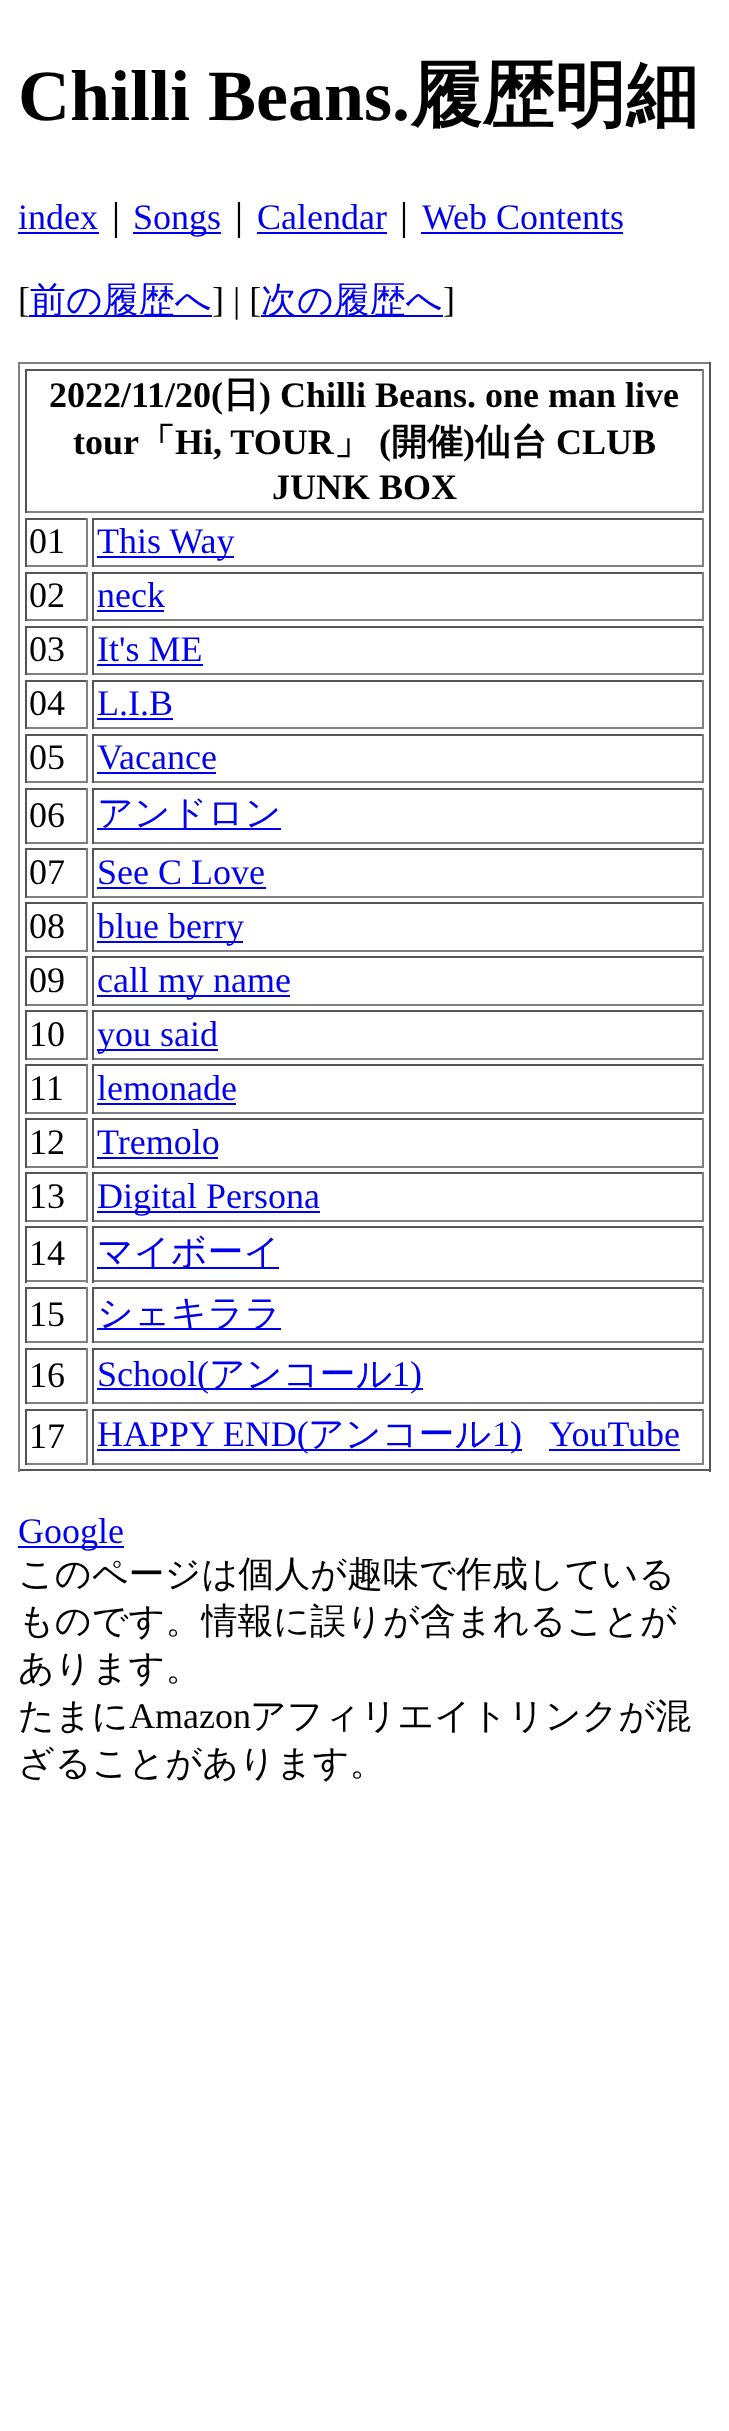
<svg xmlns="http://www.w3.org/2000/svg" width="729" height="2431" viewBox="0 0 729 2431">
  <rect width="100%" height="100%" fill="#ffffff"/>
  <text x="18" y="120" font-family="Liberation Serif" font-size="72" font-weight="bold" fill="#000000">Chilli Beans.</text>
  <text x="410" y="120" font-family="WenQuanYi Zen Hei" font-size="72" font-weight="bold" fill="#000000">履歴明細</text>
  <text x="18" y="229" font-family="Liberation Serif" font-size="36" fill="#0000ee">index</text>
  <rect x="18" y="232" width="81" height="2" fill="#0000ee"/>
  <text x="98" y="229" font-family="WenQuanYi Zen Hei" font-size="36" font-weight="500" fill="#000000">｜</text>
  <rect x="133" y="232" width="88" height="2" fill="#0000ee"/>
  <text x="133" y="229" font-family="Liberation Serif" font-size="36" fill="#0000ee">Songs</text>
  <text x="221" y="229" font-family="WenQuanYi Zen Hei" font-size="36" font-weight="500" fill="#000000">｜</text>
  <text x="257" y="229" font-family="Liberation Serif" font-size="36" fill="#0000ee">Calendar</text>
  <rect x="257" y="232" width="130" height="2" fill="#0000ee"/>
  <text x="386" y="229" font-family="WenQuanYi Zen Hei" font-size="36" font-weight="500" fill="#000000">｜</text>
  <text x="422" y="229" font-family="Liberation Serif" font-size="36" fill="#0000ee">Web Contents</text>
  <rect x="421" y="232" width="202" height="2" fill="#0000ee"/>
  <text x="18" y="312" font-family="Liberation Serif" font-size="36" fill="#000000">[</text>
  <rect x="29" y="315" width="183" height="2" fill="#0000ee"/>
  <text x="30" y="312" font-family="WenQuanYi Zen Hei" font-size="36" font-weight="500" fill="#0000ee">前の履歴へ</text>
  <text x="212" y="312" font-family="Liberation Serif" font-size="36" fill="#000000">] | [</text>
  <rect x="261" y="315" width="182" height="2" fill="#0000ee"/>
  <text x="261" y="312" font-family="WenQuanYi Zen Hei" font-size="36" font-weight="500" fill="#0000ee">次の履歴へ</text>
  <text x="443" y="312" font-family="Liberation Serif" font-size="36" fill="#000000">]</text>
  <rect x="18" y="362" width="693" height="2" fill="#808080"/>
  <rect x="709" y="362" width="2" height="1110" fill="#555555"/>
  <rect x="18" y="1469" width="693" height="2" fill="#555555"/>
  <rect x="18" y="362" width="2" height="1110" fill="#808080"/>
  <rect x="25" y="369" width="679" height="2" fill="#555555"/>
  <rect x="702" y="369" width="2" height="144" fill="#808080"/>
  <rect x="25" y="511" width="679" height="2" fill="#808080"/>
  <rect x="25" y="369" width="2" height="144" fill="#555555"/>
  <text x="49" y="407" font-family="Liberation Serif" font-size="36" font-weight="bold" fill="#000000">2022/11/20(</text>
  <text x="223" y="407" font-family="WenQuanYi Zen Hei" font-size="36" font-weight="bold" fill="#000000">日</text>
  <text x="259" y="407" font-family="Liberation Serif" font-size="36" font-weight="bold" fill="#000000">) Chilli Beans. one man live</text>
  <text x="73" y="454" font-family="Liberation Serif" font-size="36" font-weight="bold" fill="#000000">tour</text>
  <text x="139" y="454" font-family="WenQuanYi Zen Hei" font-size="36" font-weight="bold" fill="#000000">「</text>
  <text x="175" y="454" font-family="Liberation Serif" font-size="36" font-weight="bold" fill="#000000">Hi, TOUR</text>
  <text x="334" y="454" font-family="WenQuanYi Zen Hei" font-size="36" font-weight="bold" fill="#000000">」</text>
  <text x="379" y="454" font-family="Liberation Serif" font-size="36" font-weight="bold" fill="#000000">(</text>
  <text x="391" y="454" font-family="WenQuanYi Zen Hei" font-size="36" font-weight="bold" fill="#000000">開催</text>
  <text x="463" y="454" font-family="Liberation Serif" font-size="36" font-weight="bold" fill="#000000">)</text>
  <text x="475" y="454" font-family="WenQuanYi Zen Hei" font-size="36" font-weight="bold" fill="#000000">仙台</text>
  <text x="556" y="454" font-family="Liberation Serif" font-size="36" font-weight="bold" fill="#000000">CLUB</text>
  <text x="272" y="499" font-family="Liberation Serif" font-size="36" font-weight="bold" fill="#000000">JUNK BOX</text>
  <rect x="25" y="518" width="63" height="2" fill="#555555"/>
  <rect x="86" y="518" width="2" height="49" fill="#808080"/>
  <rect x="25" y="565" width="63" height="2" fill="#808080"/>
  <rect x="25" y="518" width="2" height="49" fill="#555555"/>
  <text x="29" y="553" font-family="Liberation Serif" font-size="36" fill="#000000">01</text>
  <rect x="92" y="518" width="612" height="2" fill="#555555"/>
  <rect x="702" y="518" width="2" height="49" fill="#808080"/>
  <rect x="92" y="565" width="612" height="2" fill="#808080"/>
  <rect x="92" y="518" width="2" height="49" fill="#555555"/>
  <rect x="97" y="556" width="137" height="2" fill="#0000ee"/>
  <text x="97" y="553" font-family="Liberation Serif" font-size="36" fill="#0000ee">This Way</text>
  <rect x="25" y="572" width="63" height="2" fill="#555555"/>
  <rect x="86" y="572" width="2" height="49" fill="#808080"/>
  <rect x="25" y="619" width="63" height="2" fill="#808080"/>
  <rect x="25" y="572" width="2" height="49" fill="#555555"/>
  <text x="29" y="607" font-family="Liberation Serif" font-size="36" fill="#000000">02</text>
  <rect x="92" y="572" width="612" height="2" fill="#555555"/>
  <rect x="702" y="572" width="2" height="49" fill="#808080"/>
  <rect x="92" y="619" width="612" height="2" fill="#808080"/>
  <rect x="92" y="572" width="2" height="49" fill="#555555"/>
  <text x="97" y="607" font-family="Liberation Serif" font-size="36" fill="#0000ee">neck</text>
  <rect x="97" y="610" width="67" height="2" fill="#0000ee"/>
  <rect x="25" y="626" width="63" height="2" fill="#555555"/>
  <rect x="86" y="626" width="2" height="49" fill="#808080"/>
  <rect x="25" y="673" width="63" height="2" fill="#808080"/>
  <rect x="25" y="626" width="2" height="49" fill="#555555"/>
  <text x="29" y="661" font-family="Liberation Serif" font-size="36" fill="#000000">03</text>
  <rect x="92" y="626" width="612" height="2" fill="#555555"/>
  <rect x="702" y="626" width="2" height="49" fill="#808080"/>
  <rect x="92" y="673" width="612" height="2" fill="#808080"/>
  <rect x="92" y="626" width="2" height="49" fill="#555555"/>
  <text x="97" y="661" font-family="Liberation Serif" font-size="36" fill="#0000ee">It's ME</text>
  <rect x="97" y="664" width="106" height="2" fill="#0000ee"/>
  <rect x="25" y="680" width="63" height="2" fill="#555555"/>
  <rect x="86" y="680" width="2" height="49" fill="#808080"/>
  <rect x="25" y="727" width="63" height="2" fill="#808080"/>
  <rect x="25" y="680" width="2" height="49" fill="#555555"/>
  <text x="29" y="715" font-family="Liberation Serif" font-size="36" fill="#000000">04</text>
  <rect x="92" y="680" width="612" height="2" fill="#555555"/>
  <rect x="702" y="680" width="2" height="49" fill="#808080"/>
  <rect x="92" y="727" width="612" height="2" fill="#808080"/>
  <rect x="92" y="680" width="2" height="49" fill="#555555"/>
  <text x="97" y="715" font-family="Liberation Serif" font-size="36" fill="#0000ee">L.I.B</text>
  <rect x="97" y="718" width="76" height="2" fill="#0000ee"/>
  <rect x="25" y="734" width="63" height="2" fill="#555555"/>
  <rect x="86" y="734" width="2" height="49" fill="#808080"/>
  <rect x="25" y="781" width="63" height="2" fill="#808080"/>
  <rect x="25" y="734" width="2" height="49" fill="#555555"/>
  <text x="29" y="769" font-family="Liberation Serif" font-size="36" fill="#000000">05</text>
  <rect x="92" y="734" width="612" height="2" fill="#555555"/>
  <rect x="702" y="734" width="2" height="49" fill="#808080"/>
  <rect x="92" y="781" width="612" height="2" fill="#808080"/>
  <rect x="92" y="734" width="2" height="49" fill="#555555"/>
  <text x="97" y="769" font-family="Liberation Serif" font-size="36" fill="#0000ee">Vacance</text>
  <rect x="97" y="772" width="119" height="2" fill="#0000ee"/>
  <rect x="25" y="788" width="63" height="2" fill="#555555"/>
  <rect x="86" y="788" width="2" height="56" fill="#808080"/>
  <rect x="25" y="842" width="63" height="2" fill="#808080"/>
  <rect x="25" y="788" width="2" height="56" fill="#555555"/>
  <text x="29" y="827" font-family="Liberation Serif" font-size="36" fill="#000000">06</text>
  <rect x="92" y="788" width="612" height="2" fill="#555555"/>
  <rect x="702" y="788" width="2" height="56" fill="#808080"/>
  <rect x="92" y="842" width="612" height="2" fill="#808080"/>
  <rect x="92" y="788" width="2" height="56" fill="#555555"/>
  <rect x="97" y="828" width="184" height="2" fill="#0000ee"/>
  <text x="97" y="825" font-family="WenQuanYi Zen Hei" font-size="36" font-weight="500" fill="#0000ee">アンドロン</text>
  <rect x="25" y="848" width="63" height="2" fill="#555555"/>
  <rect x="86" y="848" width="2" height="50" fill="#808080"/>
  <rect x="25" y="896" width="63" height="2" fill="#808080"/>
  <rect x="25" y="848" width="2" height="50" fill="#555555"/>
  <text x="29" y="884" font-family="Liberation Serif" font-size="36" fill="#000000">07</text>
  <rect x="92" y="848" width="612" height="2" fill="#555555"/>
  <rect x="702" y="848" width="2" height="50" fill="#808080"/>
  <rect x="92" y="896" width="612" height="2" fill="#808080"/>
  <rect x="92" y="848" width="2" height="50" fill="#555555"/>
  <text x="97" y="884" font-family="Liberation Serif" font-size="36" fill="#0000ee">See C Love</text>
  <rect x="97" y="887" width="169" height="2" fill="#0000ee"/>
  <rect x="25" y="902" width="63" height="2" fill="#555555"/>
  <rect x="86" y="902" width="2" height="50" fill="#808080"/>
  <rect x="25" y="950" width="63" height="2" fill="#808080"/>
  <rect x="25" y="902" width="2" height="50" fill="#555555"/>
  <text x="29" y="938" font-family="Liberation Serif" font-size="36" fill="#000000">08</text>
  <rect x="92" y="902" width="612" height="2" fill="#555555"/>
  <rect x="702" y="902" width="2" height="50" fill="#808080"/>
  <rect x="92" y="950" width="612" height="2" fill="#808080"/>
  <rect x="92" y="902" width="2" height="50" fill="#555555"/>
  <rect x="97" y="941" width="146" height="2" fill="#0000ee"/>
  <text x="97" y="938" font-family="Liberation Serif" font-size="36" fill="#0000ee">blue berry</text>
  <rect x="25" y="956" width="63" height="2" fill="#555555"/>
  <rect x="86" y="956" width="2" height="50" fill="#808080"/>
  <rect x="25" y="1004" width="63" height="2" fill="#808080"/>
  <rect x="25" y="956" width="2" height="50" fill="#555555"/>
  <text x="29" y="992" font-family="Liberation Serif" font-size="36" fill="#000000">09</text>
  <rect x="92" y="956" width="612" height="2" fill="#555555"/>
  <rect x="702" y="956" width="2" height="50" fill="#808080"/>
  <rect x="92" y="1004" width="612" height="2" fill="#808080"/>
  <rect x="92" y="956" width="2" height="50" fill="#555555"/>
  <rect x="97" y="995" width="193" height="2" fill="#0000ee"/>
  <text x="97" y="992" font-family="Liberation Serif" font-size="36" fill="#0000ee">call my name</text>
  <rect x="25" y="1010" width="63" height="2" fill="#555555"/>
  <rect x="86" y="1010" width="2" height="50" fill="#808080"/>
  <rect x="25" y="1058" width="63" height="2" fill="#808080"/>
  <rect x="25" y="1010" width="2" height="50" fill="#555555"/>
  <text x="29" y="1046" font-family="Liberation Serif" font-size="36" fill="#000000">10</text>
  <rect x="92" y="1010" width="612" height="2" fill="#555555"/>
  <rect x="702" y="1010" width="2" height="50" fill="#808080"/>
  <rect x="92" y="1058" width="612" height="2" fill="#808080"/>
  <rect x="92" y="1010" width="2" height="50" fill="#555555"/>
  <rect x="97" y="1049" width="121" height="2" fill="#0000ee"/>
  <text x="97" y="1046" font-family="Liberation Serif" font-size="36" fill="#0000ee">you said</text>
  <rect x="25" y="1064" width="63" height="2" fill="#555555"/>
  <rect x="86" y="1064" width="2" height="50" fill="#808080"/>
  <rect x="25" y="1112" width="63" height="2" fill="#808080"/>
  <rect x="25" y="1064" width="2" height="50" fill="#555555"/>
  <text x="29" y="1100" font-family="Liberation Serif" font-size="36" fill="#000000">11</text>
  <rect x="92" y="1064" width="612" height="2" fill="#555555"/>
  <rect x="702" y="1064" width="2" height="50" fill="#808080"/>
  <rect x="92" y="1112" width="612" height="2" fill="#808080"/>
  <rect x="92" y="1064" width="2" height="50" fill="#555555"/>
  <text x="97" y="1100" font-family="Liberation Serif" font-size="36" fill="#0000ee">lemonade</text>
  <rect x="97" y="1103" width="139" height="2" fill="#0000ee"/>
  <rect x="25" y="1118" width="63" height="2" fill="#555555"/>
  <rect x="86" y="1118" width="2" height="50" fill="#808080"/>
  <rect x="25" y="1166" width="63" height="2" fill="#808080"/>
  <rect x="25" y="1118" width="2" height="50" fill="#555555"/>
  <text x="29" y="1154" font-family="Liberation Serif" font-size="36" fill="#000000">12</text>
  <rect x="92" y="1118" width="612" height="2" fill="#555555"/>
  <rect x="702" y="1118" width="2" height="50" fill="#808080"/>
  <rect x="92" y="1166" width="612" height="2" fill="#808080"/>
  <rect x="92" y="1118" width="2" height="50" fill="#555555"/>
  <text x="97" y="1154" font-family="Liberation Serif" font-size="36" fill="#0000ee">Tremolo</text>
  <rect x="97" y="1157" width="121" height="2" fill="#0000ee"/>
  <rect x="25" y="1172" width="63" height="2" fill="#555555"/>
  <rect x="86" y="1172" width="2" height="50" fill="#808080"/>
  <rect x="25" y="1220" width="63" height="2" fill="#808080"/>
  <rect x="25" y="1172" width="2" height="50" fill="#555555"/>
  <text x="29" y="1208" font-family="Liberation Serif" font-size="36" fill="#000000">13</text>
  <rect x="92" y="1172" width="612" height="2" fill="#555555"/>
  <rect x="702" y="1172" width="2" height="50" fill="#808080"/>
  <rect x="92" y="1220" width="612" height="2" fill="#808080"/>
  <rect x="92" y="1172" width="2" height="50" fill="#555555"/>
  <rect x="97" y="1211" width="223" height="2" fill="#0000ee"/>
  <text x="97" y="1208" font-family="Liberation Serif" font-size="36" fill="#0000ee">Digital Persona</text>
  <rect x="25" y="1226" width="63" height="2" fill="#555555"/>
  <rect x="86" y="1226" width="2" height="57" fill="#808080"/>
  <rect x="25" y="1280" width="63" height="2" fill="#808080"/>
  <rect x="25" y="1226" width="2" height="57" fill="#555555"/>
  <text x="29" y="1265" font-family="Liberation Serif" font-size="36" fill="#000000">14</text>
  <rect x="92" y="1226" width="612" height="2" fill="#555555"/>
  <rect x="702" y="1226" width="2" height="57" fill="#808080"/>
  <rect x="92" y="1280" width="612" height="2" fill="#808080"/>
  <rect x="92" y="1226" width="2" height="57" fill="#555555"/>
  <rect x="97" y="1267" width="182" height="2" fill="#0000ee"/>
  <text x="97" y="1264" font-family="WenQuanYi Zen Hei" font-size="36" font-weight="500" fill="#0000ee">マイボーイ</text>
  <rect x="25" y="1287" width="63" height="2" fill="#555555"/>
  <rect x="86" y="1287" width="2" height="56" fill="#808080"/>
  <rect x="25" y="1341" width="63" height="2" fill="#808080"/>
  <rect x="25" y="1287" width="2" height="56" fill="#555555"/>
  <text x="29" y="1326" font-family="Liberation Serif" font-size="36" fill="#000000">15</text>
  <rect x="92" y="1287" width="612" height="2" fill="#555555"/>
  <rect x="702" y="1287" width="2" height="56" fill="#808080"/>
  <rect x="92" y="1341" width="612" height="2" fill="#808080"/>
  <rect x="92" y="1287" width="2" height="56" fill="#555555"/>
  <rect x="97" y="1328" width="184" height="2" fill="#0000ee"/>
  <text x="97" y="1325" font-family="WenQuanYi Zen Hei" font-size="36" font-weight="500" fill="#0000ee">シェキララ</text>
  <rect x="25" y="1348" width="63" height="2" fill="#555555"/>
  <rect x="86" y="1348" width="2" height="56" fill="#808080"/>
  <rect x="25" y="1402" width="63" height="2" fill="#808080"/>
  <rect x="25" y="1348" width="2" height="56" fill="#555555"/>
  <text x="29" y="1387" font-family="Liberation Serif" font-size="36" fill="#000000">16</text>
  <rect x="92" y="1348" width="612" height="2" fill="#555555"/>
  <rect x="702" y="1348" width="2" height="56" fill="#808080"/>
  <rect x="92" y="1402" width="612" height="2" fill="#808080"/>
  <rect x="92" y="1348" width="2" height="56" fill="#555555"/>
  <rect x="97" y="1388" width="326" height="2" fill="#0000ee"/>
  <text x="97" y="1386" font-family="Liberation Serif" font-size="36" fill="#0000ee">School(</text>
  <text x="209" y="1386" font-family="WenQuanYi Zen Hei" font-size="36" font-weight="500" fill="#0000ee">アンコール</text>
  <text x="392" y="1386" font-family="Liberation Serif" font-size="36" fill="#0000ee">1)</text>
  <rect x="25" y="1409" width="63" height="2" fill="#555555"/>
  <rect x="86" y="1409" width="2" height="56" fill="#808080"/>
  <rect x="25" y="1463" width="63" height="2" fill="#808080"/>
  <rect x="25" y="1409" width="2" height="56" fill="#555555"/>
  <text x="29" y="1448" font-family="Liberation Serif" font-size="36" fill="#000000">17</text>
  <rect x="92" y="1409" width="612" height="2" fill="#555555"/>
  <rect x="702" y="1409" width="2" height="56" fill="#808080"/>
  <rect x="92" y="1463" width="612" height="2" fill="#808080"/>
  <rect x="92" y="1409" width="2" height="56" fill="#555555"/>
  <rect x="97" y="1449" width="425" height="2" fill="#0000ee"/>
  <text x="97" y="1446" font-family="Liberation Serif" font-size="36" fill="#0000ee">HAPPY END(</text>
  <text x="308" y="1446" font-family="WenQuanYi Zen Hei" font-size="36" font-weight="500" fill="#0000ee">アンコール</text>
  <text x="492" y="1446" font-family="Liberation Serif" font-size="36" fill="#0000ee">1)</text>
  <text x="549" y="1446" font-family="Liberation Serif" font-size="36" fill="#0000ee">YouTube</text>
  <rect x="549" y="1449" width="131" height="2" fill="#0000ee"/>
  <rect x="18" y="1546" width="106" height="2" fill="#0000ee"/>
  <text x="18" y="1543" font-family="Liberation Serif" font-size="36" fill="#0000ee">Google</text>
  <text x="18" y="1586" font-family="WenQuanYi Zen Hei" font-size="36" font-weight="500" fill="#000000">このページは個人が趣味で作成している</text>
  <text x="18" y="1633" font-family="WenQuanYi Zen Hei" font-size="36" font-weight="500" fill="#000000">ものです。情報に誤りが含まれることが</text>
  <text x="18" y="1680" font-family="WenQuanYi Zen Hei" font-size="36" font-weight="500" fill="#000000">あります。</text>
  <text x="18" y="1728" font-family="WenQuanYi Zen Hei" font-size="36" font-weight="500" fill="#000000">たまに</text>
  <text x="129" y="1728" font-family="Liberation Serif" font-size="36" fill="#000000">Amazon</text>
  <text x="250" y="1728" font-family="WenQuanYi Zen Hei" font-size="36" font-weight="500" fill="#000000">アフィリエイトリンクが混</text>
  <text x="18" y="1775" font-family="WenQuanYi Zen Hei" font-size="36" font-weight="500" fill="#000000">ざることがあります。</text>
</svg>
